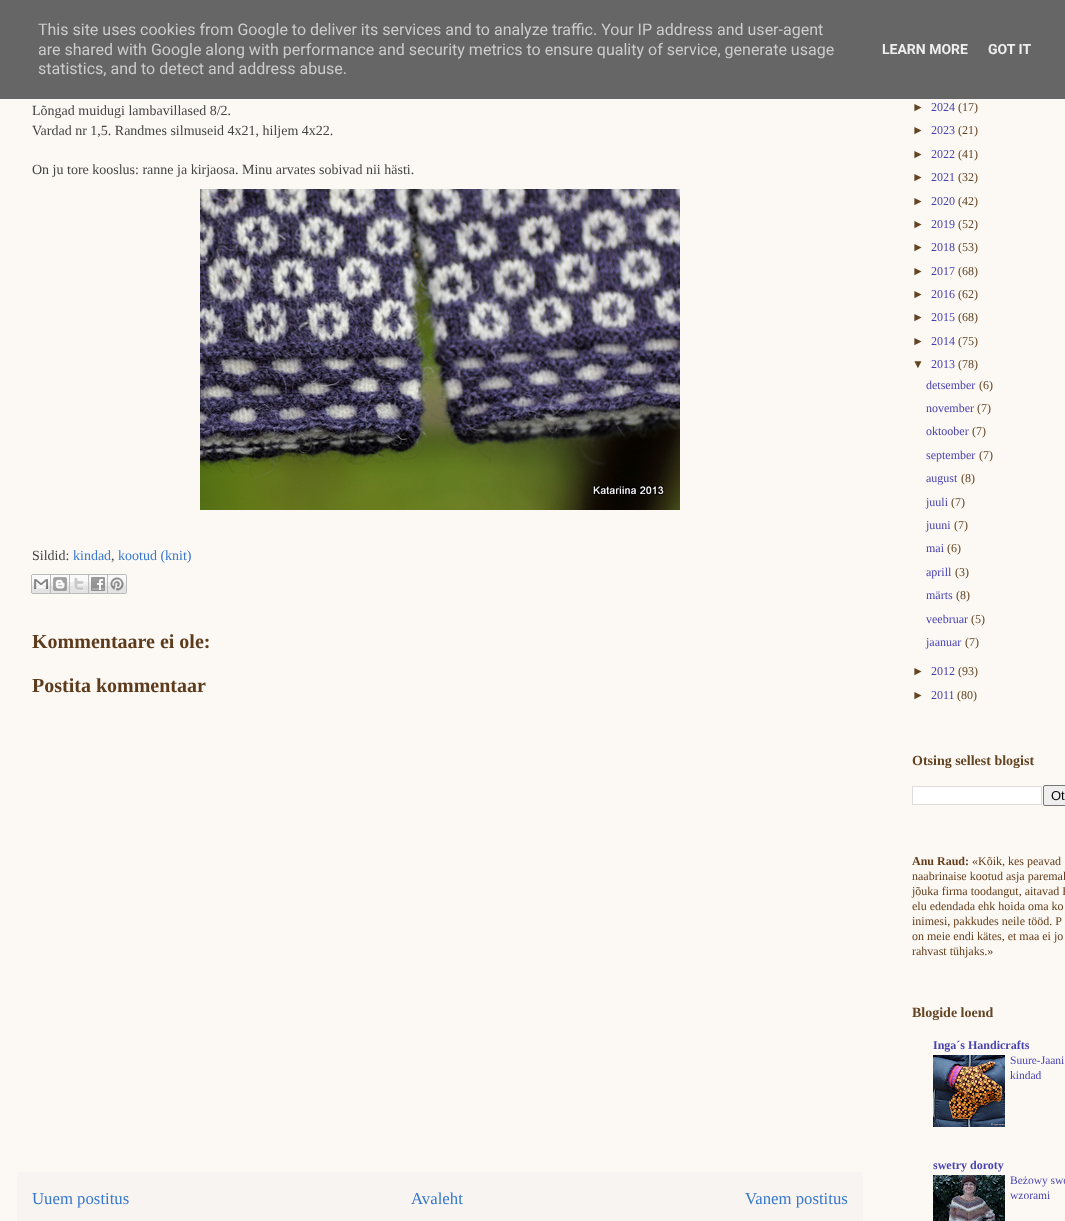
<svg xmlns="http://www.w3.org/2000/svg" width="1065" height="1221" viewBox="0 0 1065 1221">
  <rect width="100%" height="100%" fill="#fcf9f4"/>
  <rect x="0" y="0" width="1065" height="99" fill="#666666"/>
  <text x="38" y="35" font-family="Roboto" font-size="16" fill="#cccccc">This site uses cookies from Google to deliver its services and to analyze traffic. Your IP address and user-agent</text>
  <text x="38" y="55" font-family="Roboto" font-size="16" fill="#cccccc">are shared with Google along with performance and security metrics to ensure quality of service, generate usage</text>
  <text x="38" y="74" font-family="Roboto" font-size="16" fill="#cccccc">statistics, and to detect and address abuse.</text>
  <text x="882" y="54" font-family="Roboto" font-size="14" font-weight="bold" fill="#eeeeee">LEARN MORE</text>
  <text x="988" y="54" font-family="Roboto" font-size="14" font-weight="bold" fill="#eeeeee">GOT IT</text>
  <text x="32" y="115" font-family="Liberation Serif" font-size="14" fill="#444444">Lõngad muidugi lambavillased 8/2.</text>
  <text x="32" y="135" font-family="Liberation Serif" font-size="14" fill="#444444">Vardad nr 1,5. Randmes silmuseid 4x21, hiljem 4x22.</text>
  <text x="32" y="174" font-family="Liberation Serif" font-size="14" fill="#444444">On ju tore kooslus: ranne ja kirjaosa. Minu arvates sobivad nii hästi.</text>
  <image x="200" y="189" width="480" height="321" href="img1.png"/>
  <text x="32" y="560" font-family="Liberation Serif" font-size="14" fill="#444444">Sildid:</text>
  <text x="73" y="560" font-family="Liberation Serif" font-size="14" fill="#3778cd">kindad</text>
  <text x="111" y="560" font-family="Liberation Serif" font-size="14" fill="#444444">,</text>
  <text x="118" y="560" font-family="Liberation Serif" font-size="14" fill="#3778cd">kootud (knit)</text>
  <image x="31" y="574" width="20" height="20" href="img2.png"/>
  <image x="51" y="574" width="19" height="20" href="img3.png"/>
  <image x="70" y="574" width="19" height="20" href="img4.png"/>
  <image x="89" y="574" width="19" height="20" href="img5.png"/>
  <image x="108" y="574" width="19" height="20" href="img6.png"/>
  <text x="32" y="648" font-family="Liberation Serif" font-size="20" font-weight="bold" fill="#5d3c1e">Kommentaare ei ole:</text>
  <text x="32" y="692" font-family="Liberation Serif" font-size="20" font-weight="bold" fill="#5d3c1e">Postita kommentaar</text>
  <rect x="17" y="1172" width="846" height="49" fill="#f8f4f2"/>
  <text x="32" y="1204" font-family="Liberation Serif" font-size="16.75" fill="#3778cd">Uuem postitus</text>
  <text x="411" y="1204" font-family="Liberation Serif" font-size="16.75" fill="#3778cd">Avaleht</text>
  <text x="745" y="1204" font-family="Liberation Serif" font-size="16.75" fill="#3778cd">Vanem postitus</text>
  <text x="912" y="111" font-family="Liberation Sans" font-size="12" fill="#634423">►</text>
  <text x="931" y="111" font-family="Liberation Serif" font-size="12" fill="#4842b0">2024</text>
  <text x="958" y="111" font-family="Liberation Serif" font-size="12" fill="#634423">(17)</text>
  <text x="912" y="134" font-family="Liberation Sans" font-size="12" fill="#634423">►</text>
  <text x="931" y="134" font-family="Liberation Serif" font-size="12" fill="#4842b0">2023</text>
  <text x="958" y="134" font-family="Liberation Serif" font-size="12" fill="#634423">(21)</text>
  <text x="912" y="158" font-family="Liberation Sans" font-size="12" fill="#634423">►</text>
  <text x="931" y="158" font-family="Liberation Serif" font-size="12" fill="#4842b0">2022</text>
  <text x="958" y="158" font-family="Liberation Serif" font-size="12" fill="#634423">(41)</text>
  <text x="912" y="181" font-family="Liberation Sans" font-size="12" fill="#634423">►</text>
  <text x="931" y="181" font-family="Liberation Serif" font-size="12" fill="#4842b0">2021</text>
  <text x="958" y="181" font-family="Liberation Serif" font-size="12" fill="#634423">(32)</text>
  <text x="912" y="205" font-family="Liberation Sans" font-size="12" fill="#634423">►</text>
  <text x="931" y="205" font-family="Liberation Serif" font-size="12" fill="#4842b0">2020</text>
  <text x="958" y="205" font-family="Liberation Serif" font-size="12" fill="#634423">(42)</text>
  <text x="912" y="228" font-family="Liberation Sans" font-size="12" fill="#634423">►</text>
  <text x="931" y="228" font-family="Liberation Serif" font-size="12" fill="#4842b0">2019</text>
  <text x="958" y="228" font-family="Liberation Serif" font-size="12" fill="#634423">(52)</text>
  <text x="912" y="251" font-family="Liberation Sans" font-size="12" fill="#634423">►</text>
  <text x="931" y="251" font-family="Liberation Serif" font-size="12" fill="#4842b0">2018</text>
  <text x="958" y="251" font-family="Liberation Serif" font-size="12" fill="#634423">(53)</text>
  <text x="912" y="275" font-family="Liberation Sans" font-size="12" fill="#634423">►</text>
  <text x="931" y="275" font-family="Liberation Serif" font-size="12" fill="#4842b0">2017</text>
  <text x="958" y="275" font-family="Liberation Serif" font-size="12" fill="#634423">(68)</text>
  <text x="912" y="298" font-family="Liberation Sans" font-size="12" fill="#634423">►</text>
  <text x="931" y="298" font-family="Liberation Serif" font-size="12" fill="#4842b0">2016</text>
  <text x="958" y="298" font-family="Liberation Serif" font-size="12" fill="#634423">(62)</text>
  <text x="912" y="321" font-family="Liberation Sans" font-size="12" fill="#634423">►</text>
  <text x="931" y="321" font-family="Liberation Serif" font-size="12" fill="#4842b0">2015</text>
  <text x="958" y="321" font-family="Liberation Serif" font-size="12" fill="#634423">(68)</text>
  <text x="912" y="345" font-family="Liberation Sans" font-size="12" fill="#634423">►</text>
  <text x="931" y="345" font-family="Liberation Serif" font-size="12" fill="#4842b0">2014</text>
  <text x="958" y="345" font-family="Liberation Serif" font-size="12" fill="#634423">(75)</text>
  <text x="912" y="368" font-family="Liberation Sans" font-size="12" fill="#634423">▼</text>
  <text x="931" y="368" font-family="Liberation Serif" font-size="12" fill="#4842b0">2013</text>
  <text x="958" y="368" font-family="Liberation Serif" font-size="12" fill="#634423">(78)</text>
  <text x="926" y="389" font-family="Liberation Serif" font-size="12" fill="#4842b0">detsember</text>
  <text x="979" y="389" font-family="Liberation Serif" font-size="12" fill="#634423">(6)</text>
  <text x="926" y="412" font-family="Liberation Serif" font-size="12" fill="#4842b0">november</text>
  <text x="977" y="412" font-family="Liberation Serif" font-size="12" fill="#634423">(7)</text>
  <text x="926" y="435" font-family="Liberation Serif" font-size="12" fill="#4842b0">oktoober</text>
  <text x="972" y="435" font-family="Liberation Serif" font-size="12" fill="#634423">(7)</text>
  <text x="926" y="459" font-family="Liberation Serif" font-size="12" fill="#4842b0">september</text>
  <text x="979" y="459" font-family="Liberation Serif" font-size="12" fill="#634423">(7)</text>
  <text x="926" y="482" font-family="Liberation Serif" font-size="12" fill="#4842b0">august</text>
  <text x="961" y="482" font-family="Liberation Serif" font-size="12" fill="#634423">(8)</text>
  <text x="926" y="506" font-family="Liberation Serif" font-size="12" fill="#4842b0">juuli</text>
  <text x="951" y="506" font-family="Liberation Serif" font-size="12" fill="#634423">(7)</text>
  <text x="926" y="529" font-family="Liberation Serif" font-size="12" fill="#4842b0">juuni</text>
  <text x="954" y="529" font-family="Liberation Serif" font-size="12" fill="#634423">(7)</text>
  <text x="926" y="552" font-family="Liberation Serif" font-size="12" fill="#4842b0">mai</text>
  <text x="947" y="552" font-family="Liberation Serif" font-size="12" fill="#634423">(6)</text>
  <text x="926" y="576" font-family="Liberation Serif" font-size="12" fill="#4842b0">aprill</text>
  <text x="955" y="576" font-family="Liberation Serif" font-size="12" fill="#634423">(3)</text>
  <text x="926" y="599" font-family="Liberation Serif" font-size="12" fill="#4842b0">märts</text>
  <text x="956" y="599" font-family="Liberation Serif" font-size="12" fill="#634423">(8)</text>
  <text x="926" y="623" font-family="Liberation Serif" font-size="12" fill="#4842b0">veebruar</text>
  <text x="971" y="623" font-family="Liberation Serif" font-size="12" fill="#634423">(5)</text>
  <text x="926" y="646" font-family="Liberation Serif" font-size="12" fill="#4842b0">jaanuar</text>
  <text x="965" y="646" font-family="Liberation Serif" font-size="12" fill="#634423">(7)</text>
  <text x="912" y="675" font-family="Liberation Sans" font-size="12" fill="#634423">►</text>
  <text x="931" y="675" font-family="Liberation Serif" font-size="12" fill="#4842b0">2012</text>
  <text x="958" y="675" font-family="Liberation Serif" font-size="12" fill="#634423">(93)</text>
  <text x="912" y="699" font-family="Liberation Sans" font-size="12" fill="#634423">►</text>
  <text x="931" y="699" font-family="Liberation Serif" font-size="12" fill="#4842b0">2011</text>
  <text x="957" y="699" font-family="Liberation Serif" font-size="12" fill="#634423">(80)</text>
  <text x="912" y="765" font-family="Liberation Serif" font-size="14" font-weight="bold" fill="#634423">Otsing sellest blogist</text>
  <rect x="912.5" y="786.5" width="129" height="18" fill="#ffffff" stroke="#dddddd"/>
  <rect x="1043.5" y="785.5" width="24" height="20" rx="1.5" fill="#efefef" stroke="#767676"/>
  <text x="1051" y="800" font-family="Liberation Sans" font-size="13" fill="#000000">Ot</text>
  <text x="912" y="865" font-family="Liberation Serif" font-size="12" font-weight="bold" fill="#633c19">Anu Raud:</text>
  <text x="972" y="865" font-family="Liberation Serif" font-size="12" fill="#633c19">«Kõik, kes peavad</text>
  <text x="912" y="880" font-family="Liberation Serif" font-size="12" fill="#633c19">naabrinaise kootud asja paremak</text>
  <text x="912" y="895" font-family="Liberation Serif" font-size="12" fill="#633c19">jõuka firma toodangut, aitavad E</text>
  <text x="912" y="910" font-family="Liberation Serif" font-size="12" fill="#633c19">elu edendada ehk hoida oma ko</text>
  <text x="912" y="925" font-family="Liberation Serif" font-size="12" fill="#633c19">inimesi, pakkudes neile tööd. P</text>
  <text x="912" y="940" font-family="Liberation Serif" font-size="12" fill="#633c19">on meie endi kätes, et maa ei jo</text>
  <text x="912" y="955" font-family="Liberation Serif" font-size="12" fill="#633c19">rahvast tühjaks.»</text>
  <text x="912" y="1017" font-family="Liberation Serif" font-size="14" font-weight="bold" fill="#634423">Blogide loend</text>
  <text x="933" y="1049" font-family="Liberation Serif" font-size="12" font-weight="bold" fill="#4842b0">Inga´s Handicrafts</text>
  <image x="933" y="1055" width="72" height="72" href="img7.png"/>
  <text x="1010" y="1064" font-family="Liberation Serif" font-size="11.5" fill="#4842b0">Suure-Jaani</text>
  <text x="1010" y="1079" font-family="Liberation Serif" font-size="11.5" fill="#4842b0">kindad</text>
  <text x="933" y="1169" font-family="Liberation Serif" font-size="12" font-weight="bold" fill="#4842b0">swetry doroty</text>
  <image x="933" y="1175" width="72" height="46" href="img8.png"/>
  <text x="1010" y="1184" font-family="Liberation Serif" font-size="11.5" fill="#4842b0">Beżowy swe</text>
  <text x="1010" y="1199" font-family="Liberation Serif" font-size="11.5" fill="#4842b0">wzorami</text>
</svg>
